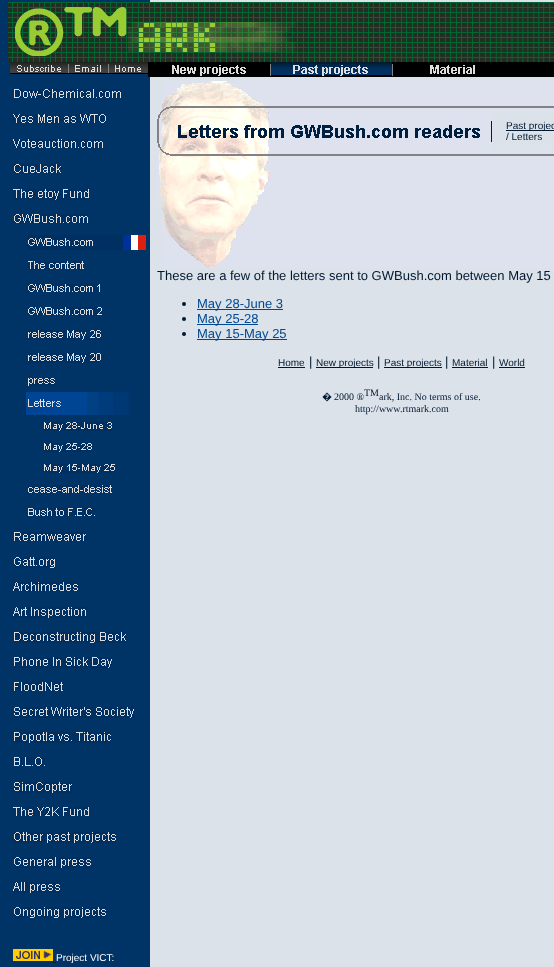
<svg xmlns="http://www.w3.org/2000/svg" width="554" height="967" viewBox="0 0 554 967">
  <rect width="100%" height="100%" fill="#dbe2ea"/>
  <rect x="0" y="0" width="150" height="967" fill="#003366"/>
  <image x="8" y="2" width="140" height="60" href="img1.png"/>
  <image x="148" y="2" width="328" height="60" href="img2.png"/>
  <image x="476" y="2" width="78" height="60" href="img3.png"/>
  <image x="10" y="62" width="58" height="12" href="img4.png"/>
  <image x="68" y="62" width="40" height="12" href="img5.png"/>
  <image x="108" y="62" width="40" height="12" href="img6.png"/>
  <image x="148" y="62" width="122" height="15" href="img7.png"/>
  <image x="270" y="62" width="122" height="15" href="img8.png"/>
  <image x="392" y="62" width="122" height="15" href="img9.png"/>
  <rect x="514" y="62" width="40" height="15" fill="#000000"/>
  <image x="157" y="111" width="5" height="93" href="img10.png"/>
  <image x="162" y="81" width="392" height="30" href="img11.png"/>
  <image x="162" y="111" width="330" height="40" href="img12.png"/>
  <rect x="506" y="130" width="48" height="1" fill="#001831"/>
  <text x="506" y="129" font-family="Liberation Sans" font-size="10" fill="#001831">Past projec</text>
  <text x="506" y="140" font-family="Liberation Sans" font-size="10" fill="#001831">/ Letters</text>
  <image x="162" y="151" width="392" height="117" href="img13.png"/>
  <text x="157" y="280" font-family="Liberation Sans" font-size="13" fill="#001831">These are a few of the letters sent to GWBush.com between May 15</text>
  <circle cx="184" cy="304" r="2" fill="#001831"/>
  <rect x="197" y="309" width="86" height="1" fill="#004891"/>
  <text x="197" y="308" font-family="Liberation Sans" font-size="13" fill="#004891">May 28-June 3</text>
  <circle cx="184" cy="319" r="2" fill="#001831"/>
  <rect x="197" y="324" width="61" height="1" fill="#004891"/>
  <text x="197" y="323" font-family="Liberation Sans" font-size="13" fill="#004891">May 25-28</text>
  <circle cx="184" cy="334" r="2" fill="#001831"/>
  <rect x="197" y="339" width="90" height="1" fill="#004891"/>
  <text x="197" y="338" font-family="Liberation Sans" font-size="13" fill="#004891">May 15-May 25</text>
  <text x="278" y="366" font-family="Liberation Sans" font-size="10" fill="#001831">Home</text>
  <rect x="278" y="367" width="27" height="1" fill="#001831"/>
  <text x="309" y="366" font-family="Liberation Sans" font-size="13" fill="#001831">|</text>
  <rect x="316" y="367" width="57" height="1" fill="#001831"/>
  <text x="316" y="366" font-family="Liberation Sans" font-size="10" fill="#001831">New projects</text>
  <text x="377" y="366" font-family="Liberation Sans" font-size="13" fill="#001831">|</text>
  <rect x="384" y="367" width="58" height="1" fill="#001831"/>
  <text x="384" y="366" font-family="Liberation Sans" font-size="10" fill="#001831">Past projects</text>
  <text x="445" y="366" font-family="Liberation Sans" font-size="13" fill="#001831">|</text>
  <text x="452" y="366" font-family="Liberation Sans" font-size="10" fill="#001831">Material</text>
  <rect x="452" y="367" width="36" height="1" fill="#001831"/>
  <text x="492" y="366" font-family="Liberation Sans" font-size="13" fill="#001831">|</text>
  <text x="499" y="366" font-family="Liberation Sans" font-size="10" fill="#001831">World</text>
  <rect x="499" y="367" width="26" height="1" fill="#001831"/>
  <text x="322" y="400" font-family="Noto Sans" font-size="10" fill="#001831">�</text>
  <text x="334" y="400" font-family="Liberation Serif" font-size="10" fill="#001831">2000 ®</text>
  <text x="364" y="396" font-family="Liberation Serif" font-size="10" fill="#001831">TM</text>
  <text x="379" y="400" font-family="Liberation Serif" font-size="10" fill="#001831">ark, Inc. No terms of use.</text>
  <text x="355" y="412" font-family="Liberation Serif" font-size="10" fill="#001831">http://www.rtmark.com</text>
  <image x="14" y="89" width="107" height="9" href="img14.png"/>
  <image x="13" y="114" width="93" height="9" href="img15.png"/>
  <image x="13" y="139" width="90" height="9" href="img16.png"/>
  <image x="14" y="164" width="47" height="9" href="img17.png"/>
  <image x="13" y="189" width="76" height="11" href="img18.png"/>
  <image x="14" y="214" width="74" height="9" href="img19.png"/>
  <image x="28" y="235" width="118" height="15" href="img20.png"/>
  <image x="28" y="261" width="56" height="8" href="img21.png"/>
  <image x="28" y="284" width="72" height="8" href="img22.png"/>
  <image x="28" y="307" width="74" height="8" href="img23.png"/>
  <image x="28" y="330" width="73" height="10" href="img24.png"/>
  <image x="28" y="353" width="73" height="10" href="img25.png"/>
  <image x="28" y="378" width="27" height="8" href="img26.png"/>
  <image x="26" y="392" width="103" height="23" href="img27.png"/>
  <image x="44" y="422" width="68" height="9" href="img28.png"/>
  <image x="44" y="443" width="48" height="9" href="img29.png"/>
  <image x="44" y="464" width="71" height="9" href="img30.png"/>
  <image x="28" y="485" width="84" height="8" href="img31.png"/>
  <image x="28" y="508" width="67" height="8" href="img32.png"/>
  <image x="14" y="532" width="72" height="9" href="img33.png"/>
  <image x="14" y="557" width="41" height="11" href="img34.png"/>
  <image x="13" y="582" width="65" height="9" href="img35.png"/>
  <image x="13" y="607" width="73" height="11" href="img36.png"/>
  <image x="14" y="632" width="112" height="11" href="img37.png"/>
  <image x="14" y="657" width="98" height="11" href="img38.png"/>
  <image x="14" y="682" width="49" height="9" href="img39.png"/>
  <image x="14" y="707" width="120" height="11" href="img40.png"/>
  <image x="14" y="732" width="97" height="11" href="img41.png"/>
  <image x="14" y="757" width="31" height="9" href="img42.png"/>
  <image x="14" y="782" width="58" height="11" href="img43.png"/>
  <image x="13" y="807" width="76" height="9" href="img44.png"/>
  <image x="14" y="832" width="102" height="11" href="img45.png"/>
  <image x="14" y="857" width="77" height="11" href="img46.png"/>
  <image x="13" y="882" width="47" height="11" href="img47.png"/>
  <image x="14" y="907" width="92" height="11" href="img48.png"/>
  <image x="13" y="949" width="40" height="12" href="img49.png"/>
  <text x="56" y="961" font-family="Liberation Sans" font-size="10" fill="#ffffff">Project VICT:</text>
  <rect x="53" y="962" width="3" height="1" fill="#001831"/>
</svg>
